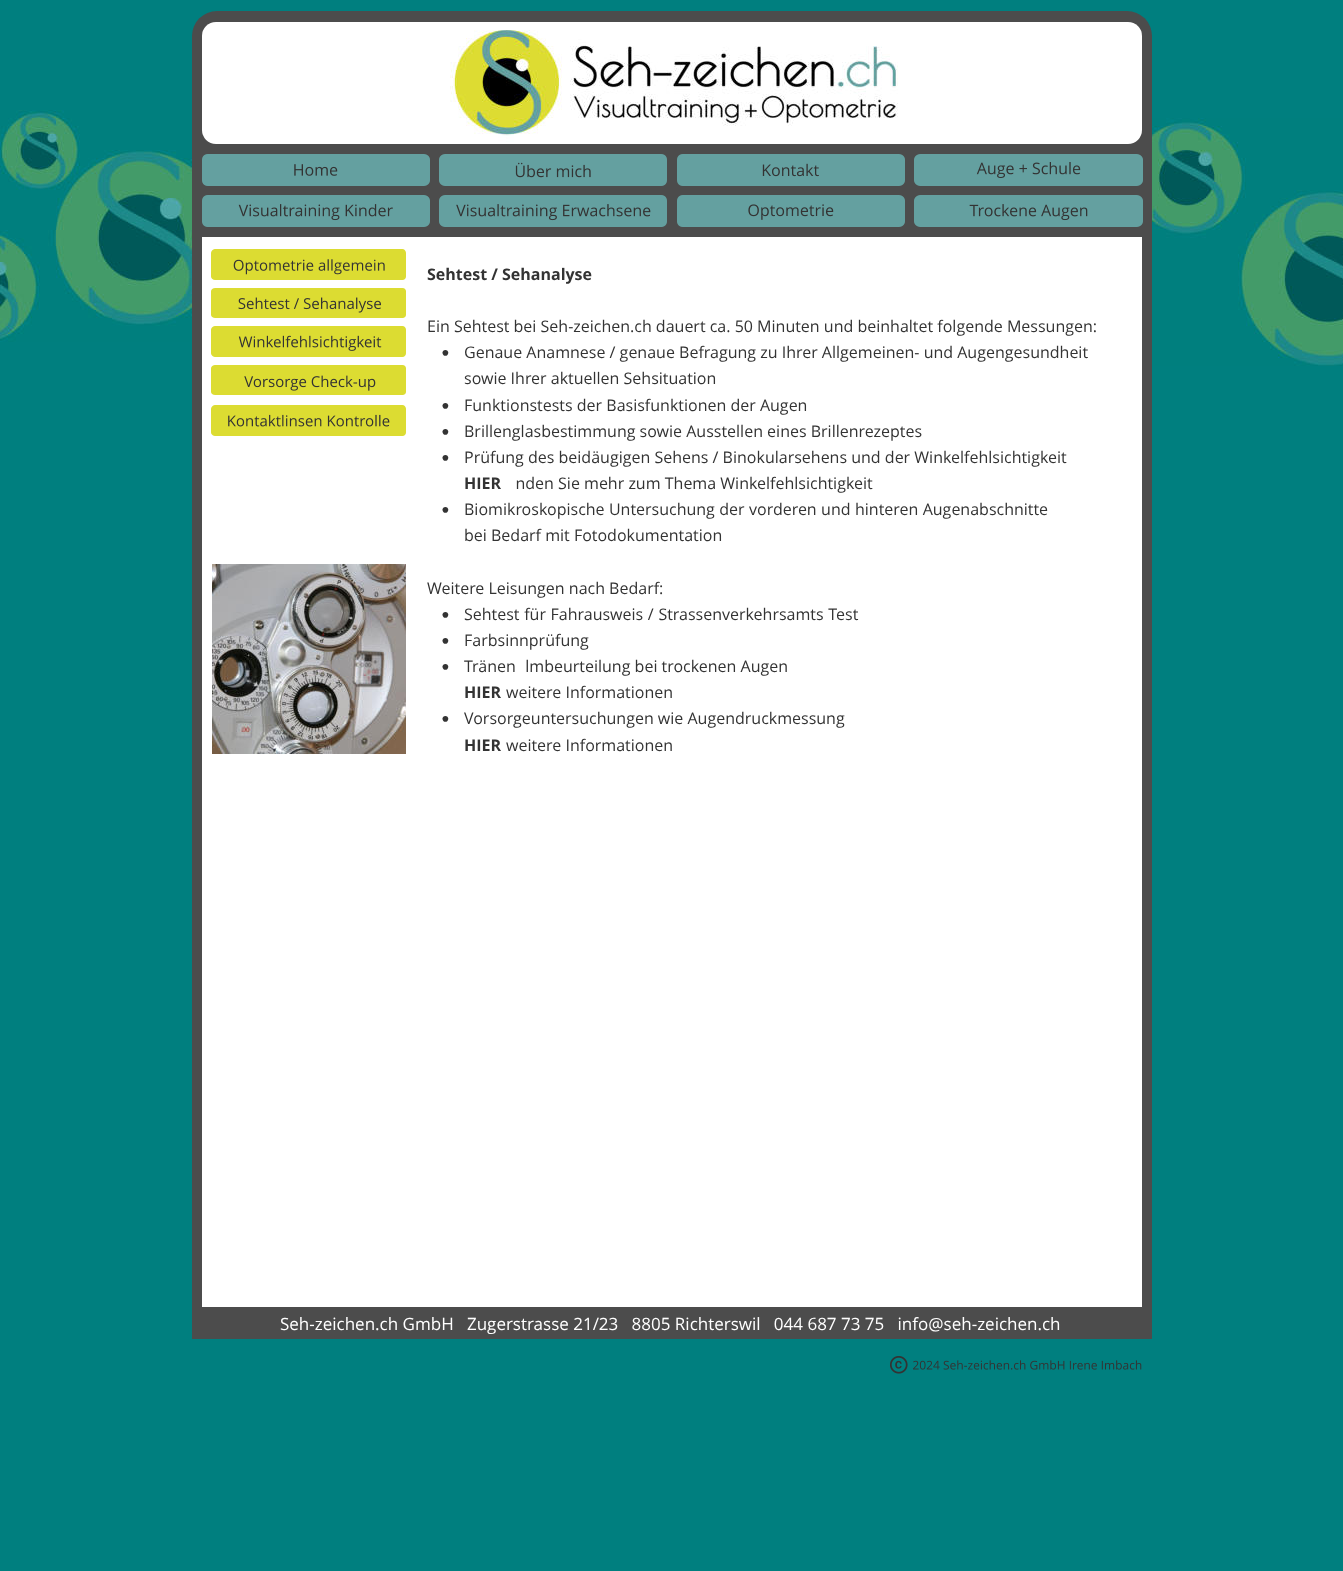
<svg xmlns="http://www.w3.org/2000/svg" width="1343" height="1571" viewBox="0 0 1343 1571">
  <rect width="100%" height="100%" fill="#007f7f"/>
  <rect x="192" y="11" width="960" height="1315" rx="25" fill="#4c4c4c"/>
  <rect x="202" y="22" width="940" height="122" rx="14" fill="#ffffff"/>
  <image x="450" y="30" width="448" height="112" href="img1.png"/>
  <image x="0" y="110" width="192" height="232" href="img2.png"/>
  <image x="202" y="154" width="228" height="32" href="img3.png"/>
  <image x="439" y="154" width="228" height="32" href="img4.png"/>
  <image x="677" y="154" width="228" height="32" href="img5.png"/>
  <image x="914" y="154" width="229" height="32" href="img6.png"/>
  <image x="1152" y="118" width="191" height="248" href="img7.png"/>
  <image x="202" y="195" width="228" height="32" href="img8.png"/>
  <image x="439" y="195" width="228" height="32" href="img9.png"/>
  <image x="677" y="195" width="228" height="32" href="img10.png"/>
  <image x="914" y="195" width="229" height="32" href="img11.png"/>
  <rect x="192" y="1302" width="960" height="37" fill="#4c4c4c"/>
  <rect x="202" y="237" width="940" height="1070" fill="#ffffff"/>
  <image x="211" y="249" width="195" height="31" href="img12.png"/>
  <text x="427" y="280" font-family="Open Sans" font-size="16" font-weight="bold" fill="#333333">Sehtest / Sehanalyse</text>
  <text x="427" y="332" font-family="Open Sans" font-size="16" fill="#333333">Ein Sehtest bei Seh-zeichen.ch dauert ca. 50 Minuten und beinhaltet folgende Messungen:</text>
  <text x="441" y="358" font-family="Verdana" font-size="16" fill="#333333">•</text>
  <text x="464" y="358" font-family="Open Sans" font-size="16" fill="#333333">Genaue Anamnese / genaue Befragung zu Ihrer Allgemeinen- und Augengesundheit</text>
  <text x="464" y="384" font-family="Open Sans" font-size="16" fill="#333333">sowie Ihrer aktuellen Sehsituation</text>
  <text x="441" y="411" font-family="Verdana" font-size="16" fill="#333333">•</text>
  <text x="464" y="411" font-family="Open Sans" font-size="16" fill="#333333">Funktionstests der Basisfunktionen der Augen</text>
  <text x="441" y="437" font-family="Verdana" font-size="16" fill="#333333">•</text>
  <text x="464" y="437" font-family="Open Sans" font-size="16" fill="#333333">Brillenglasbestimmung sowie Ausstellen eines Brillenrezeptes</text>
  <text x="441" y="463" font-family="Verdana" font-size="16" fill="#333333">•</text>
  <text x="464" y="463" font-family="Open Sans" font-size="16" fill="#333333">Prüfung des beidäugigen Sehens / Binokularsehens und der Winkelfehlsichtigkeit</text>
  <text x="464" y="489" font-family="Open Sans" font-size="16" font-weight="bold" fill="#333333">HIER</text>
  <text x="506" y="489" font-family="Open Sans" font-size="16" fill="#333333">finden Sie mehr zum Thema Winkelfehlsichtigkeit</text>
  <text x="441" y="515" font-family="Verdana" font-size="16" fill="#333333">•</text>
  <text x="464" y="515" word-spacing="0.25" font-family="Open Sans" font-size="16" fill="#333333">Biomikroskopische Untersuchung der vorderen und hinteren Augenabschnitte</text>
  <text x="464" y="541" font-family="Open Sans" font-size="16" fill="#333333">bei Bedarf mit Fotodokumentation</text>
  <text x="427" y="594" font-family="Open Sans" font-size="16" fill="#333333">Weitere Leisungen nach Bedarf:</text>
  <text x="441" y="620" font-family="Verdana" font-size="16" fill="#333333">•</text>
  <text x="464" y="620" word-spacing="0.5" font-family="Open Sans" font-size="16" fill="#333333">Sehtest für Fahrausweis / Strassenverkehrsamts Test</text>
  <text x="441" y="646" font-family="Verdana" font-size="16" fill="#333333">•</text>
  <text x="464" y="646" font-family="Open Sans" font-size="16" fill="#333333">Farbsinnprüfung</text>
  <text x="441" y="672" font-family="Verdana" font-size="16" fill="#333333">•</text>
  <text x="464" y="672" font-family="Open Sans" font-size="16" fill="#333333">Tränenfilmbeurteilung bei trockenen Augen</text>
  <text x="464" y="698" font-family="Open Sans" font-size="16" font-weight="bold" fill="#333333">HIER</text>
  <text x="506" y="698" font-family="Open Sans" font-size="16" fill="#333333">weitere Informationen</text>
  <text x="441" y="724" font-family="Verdana" font-size="16" fill="#333333">•</text>
  <text x="464" y="724" font-family="Open Sans" font-size="16" fill="#333333">Vorsorgeuntersuchungen wie Augendruckmessung</text>
  <text x="464" y="751" font-family="Open Sans" font-size="16" font-weight="bold" fill="#333333">HIER</text>
  <text x="506" y="751" font-family="Open Sans" font-size="16" fill="#333333">weitere Informationen</text>
  <image x="211" y="288" width="195" height="30" href="img13.png"/>
  <image x="211" y="326" width="195" height="31" href="img14.png"/>
  <image x="211" y="365" width="195" height="30" href="img15.png"/>
  <image x="211" y="405" width="195" height="31" href="img16.png"/>
  <image x="212" y="564" width="194" height="190" href="img17.png"/>
  <text x="280" y="1330" font-family="Open Sans" font-size="17" fill="#ffffff" xml:space="preserve">Seh-zeichen.ch GmbH   Zugerstrasse 21/23   8805 Richterswil   044 687 73 75   info@seh-zeichen.ch</text>
  <image x="890" y="1356" width="252" height="18" href="img18.png"/>
</svg>
